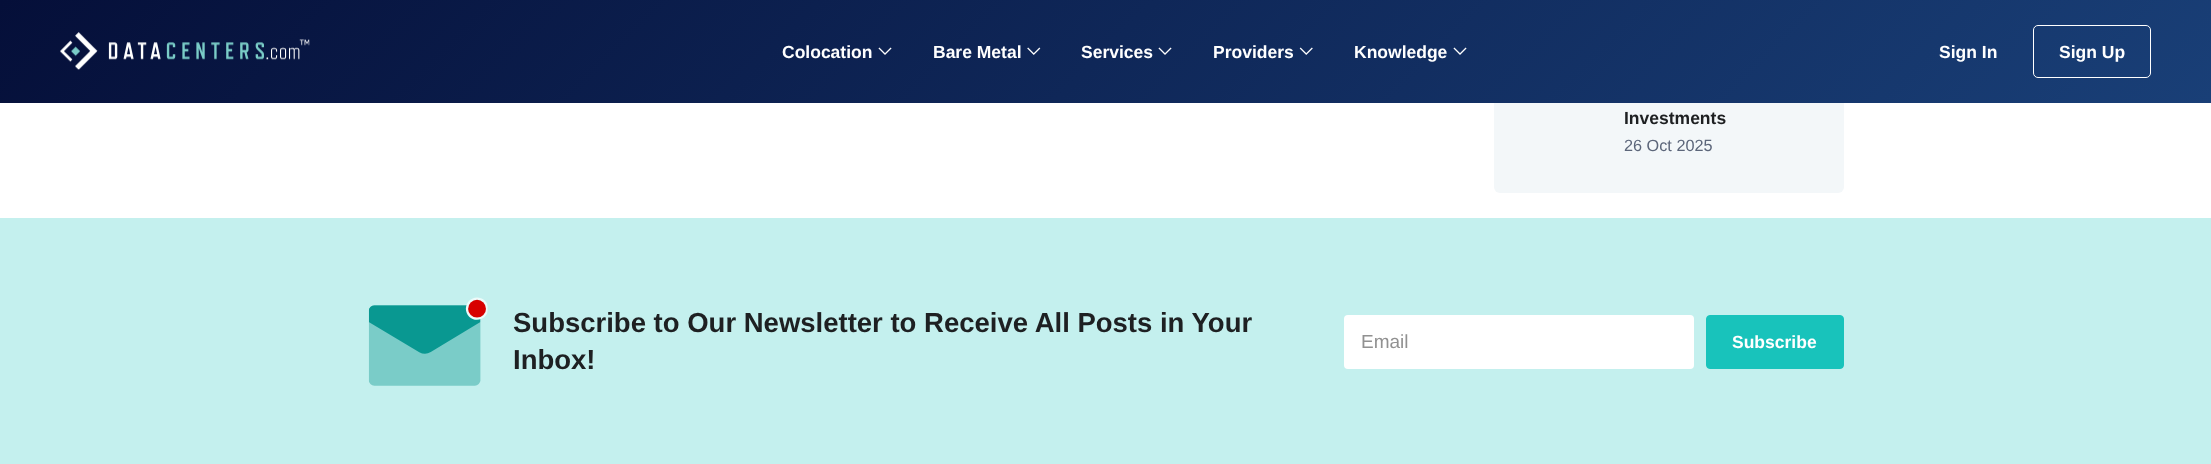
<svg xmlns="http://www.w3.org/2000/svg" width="2211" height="464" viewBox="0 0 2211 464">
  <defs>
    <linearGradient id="g1" gradientUnits="userSpaceOnUse" x1="527" y1="-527" x2="1684" y2="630"><stop offset="0" stop-color="#050f39"/><stop offset="1" stop-color="#193f77"/></linearGradient>
  </defs>
  <rect width="100%" height="100%" fill="#ffffff"/>
  <rect x="1494" y="-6" width="350" height="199" rx="6" fill="#f3f7f9"/>
  <rect x="0" y="0" width="2211" height="103" fill="url(#g1)"/>
  <image x="60" y="32" width="250" height="38" href="img1.png"/>
  <text x="782" y="58" font-family="Liberation Sans" font-size="17.5" font-weight="bold" fill="#ffffff">Colocation</text>
  <image x="878" y="47" width="14" height="8" href="img2.png"/>
  <text x="933" y="58" font-family="Liberation Sans" font-size="17.5" font-weight="bold" fill="#ffffff">Bare Metal</text>
  <image x="1027" y="47" width="14" height="8" href="img3.png"/>
  <text x="1081" y="58" font-family="Liberation Sans" font-size="17.5" font-weight="bold" fill="#ffffff">Services</text>
  <image x="1158" y="47" width="14" height="8" href="img4.png"/>
  <text x="1213" y="58" font-family="Liberation Sans" font-size="17.5" font-weight="bold" fill="#ffffff">Providers</text>
  <image x="1299" y="47" width="14" height="8" href="img5.png"/>
  <text x="1354" y="58" font-family="Liberation Sans" font-size="17.5" font-weight="bold" fill="#ffffff">Knowledge</text>
  <image x="1453" y="47" width="14" height="8" href="img6.png"/>
  <text x="1939" y="58" font-family="Liberation Sans" font-size="17.5" font-weight="bold" fill="#ffffff">Sign In</text>
  <rect x="2033.5" y="25.5" width="117" height="52" rx="4.5" fill="none" stroke="#ffffff"/>
  <text x="2059" y="58" font-family="Liberation Sans" font-size="17.5" font-weight="bold" fill="#ffffff">Sign Up</text>
  <text x="1624" y="124" font-family="Liberation Sans" font-size="17.5" font-weight="bold" fill="#1e2022">Investments</text>
  <text x="1624" y="151" font-family="Liberation Sans" font-size="16.25" fill="#5c667a">26 Oct 2025</text>
  <rect x="0" y="218" width="2211" height="246" fill="#c4f0ee"/>
  <image x="368" y="297" width="120" height="89" href="img7.png"/>
  <text x="513" y="332" font-family="Liberation Sans" font-size="27.5" font-weight="bold" fill="#1e2022">Subscribe to Our Newsletter to Receive All Posts in Your</text>
  <text x="513" y="369" font-family="Liberation Sans" font-size="27.5" font-weight="bold" fill="#1e2022">Inbox!</text>
  <rect x="1344" y="315" width="350" height="54" rx="4" fill="#ffffff"/>
  <text x="1361" y="348" font-family="Liberation Sans" font-size="19" fill="#919191">Email</text>
  <rect x="1706.5" y="315.5" width="137" height="53" rx="3.5" fill="#18c3bb" stroke="#18c3bb"/>
  <text x="1732" y="348" font-family="Liberation Sans" font-size="17.5" font-weight="bold" fill="#ffffff">Subscribe</text>
</svg>
